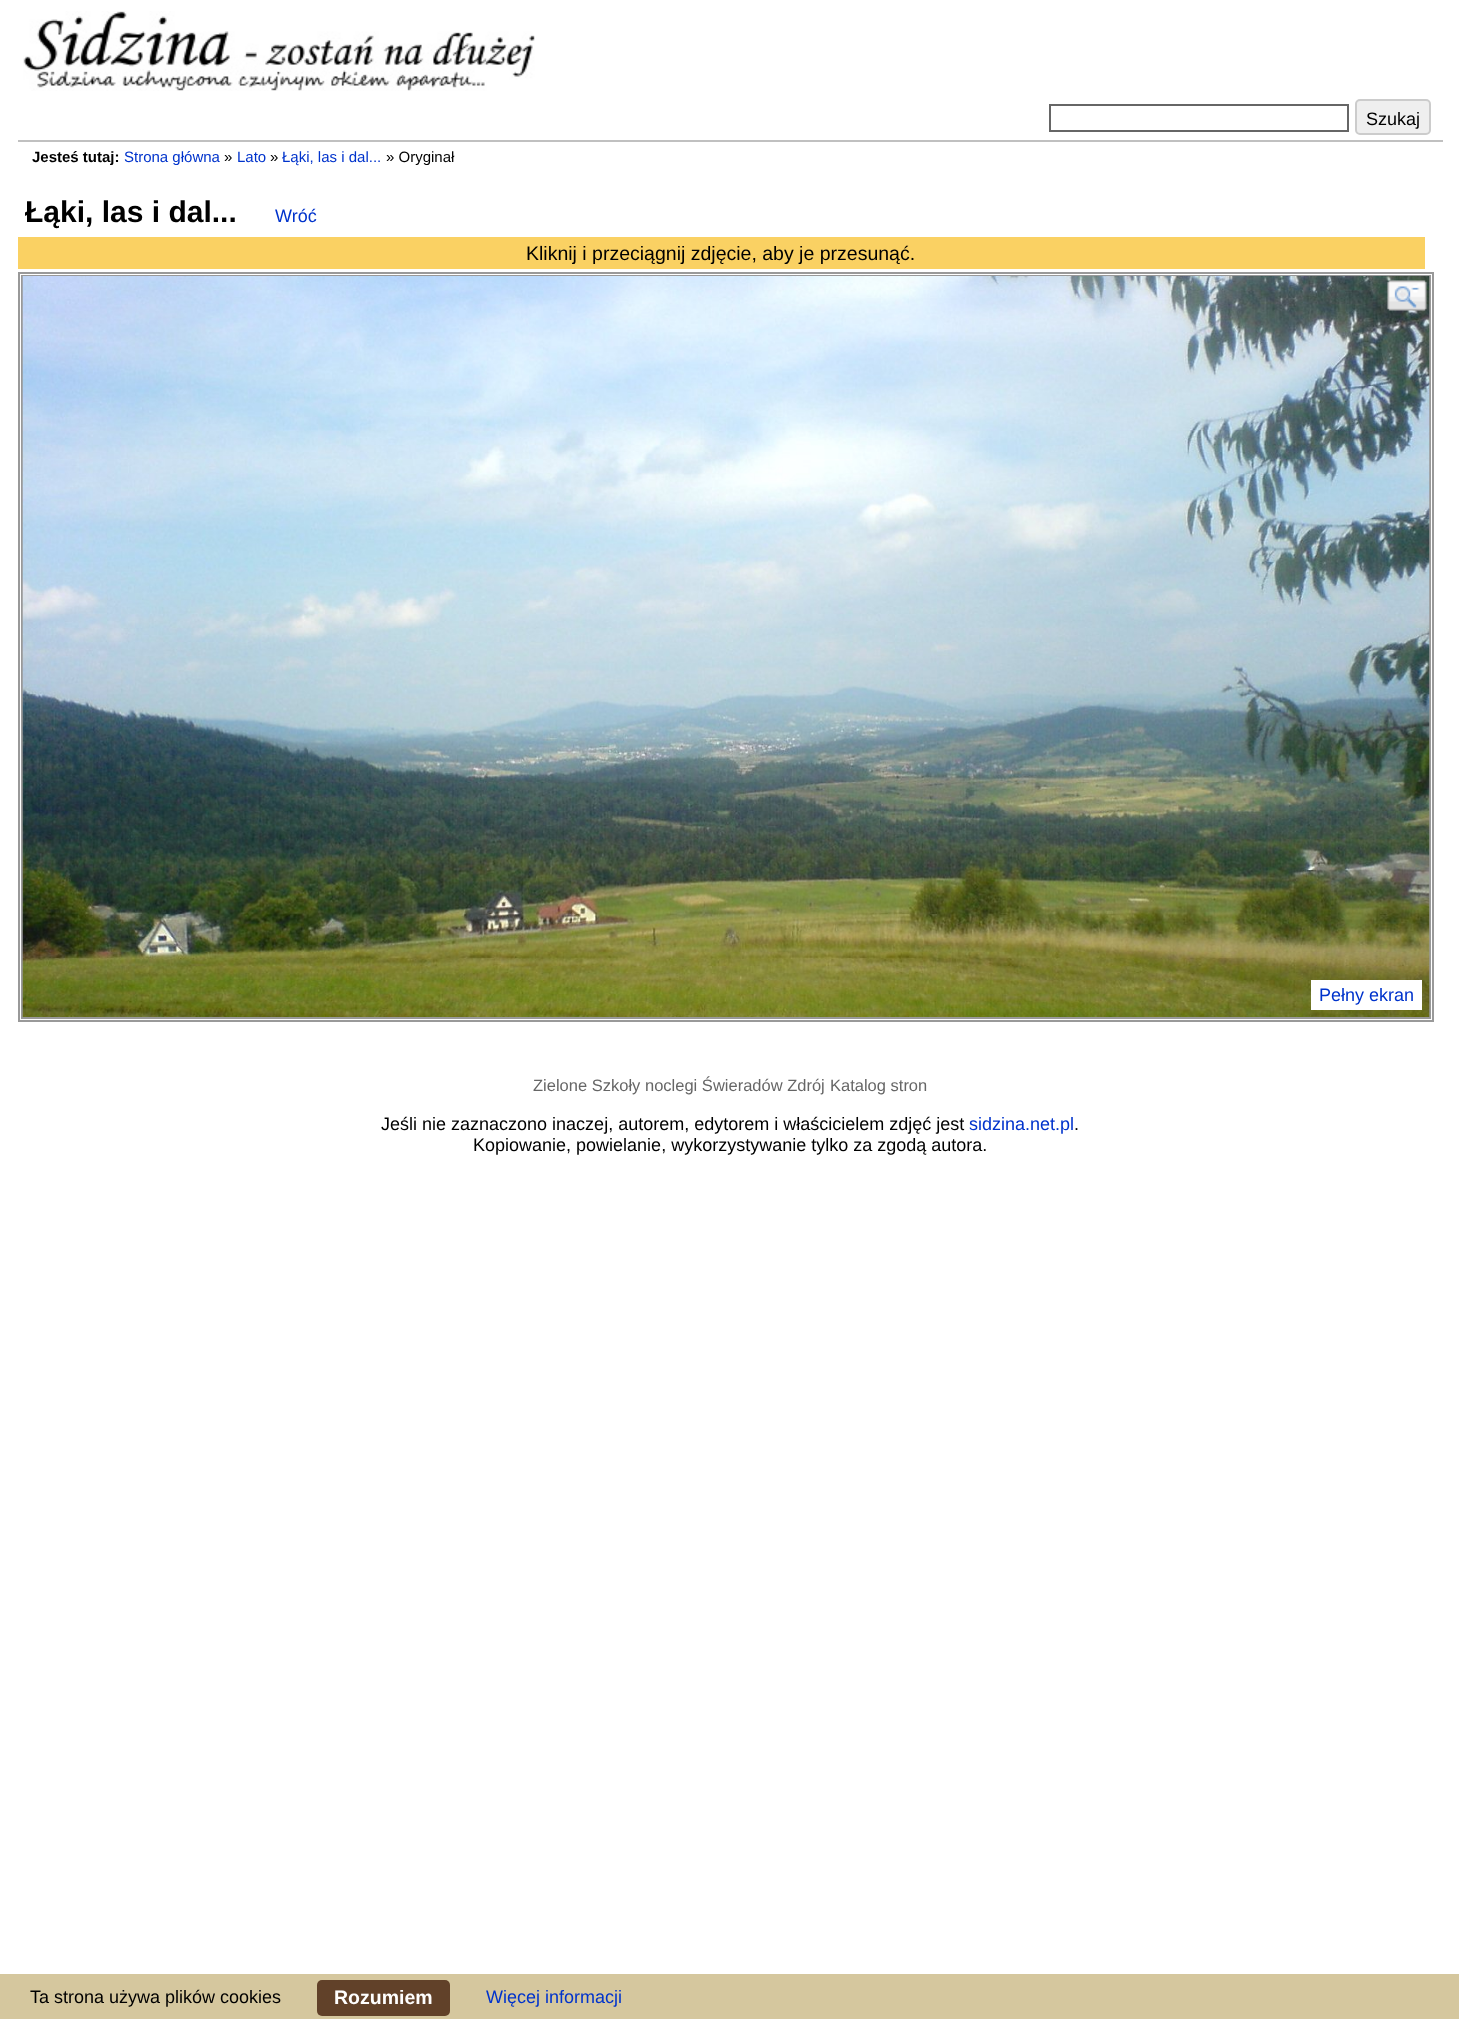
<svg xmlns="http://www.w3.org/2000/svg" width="1459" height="2019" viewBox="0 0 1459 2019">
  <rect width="100%" height="100%" fill="#ffffff"/>
  <rect x="18" y="140" width="1425" height="2" fill="#c0c0c0"/>
  <image x="23" y="11" width="512" height="80" href="img1.png"/>
  <rect x="1050" y="105" width="298" height="26" fill="none" stroke="#666666" stroke-width="2"/>
  <rect x="1356" y="100" width="74" height="34" rx="4" fill="#efefef" stroke="#cccccc" stroke-width="2"/>
  <text x="1366" y="125" font-family="Liberation Sans" font-size="18" fill="#000000">Szukaj</text>
  <text x="32" y="162" font-family="Liberation Sans" font-size="15" font-weight="bold" fill="#000000">Jesteś tutaj:</text>
  <text x="124" y="162" font-family="Liberation Sans" font-size="15" fill="#0033cc">Strona główna</text>
  <text x="224" y="162" font-family="Liberation Sans" font-size="15" fill="#000000">»</text>
  <text x="237" y="162" font-family="Liberation Sans" font-size="15" fill="#0033cc">Lato</text>
  <text x="270" y="162" font-family="Liberation Sans" font-size="15" fill="#000000">»</text>
  <text x="282" y="162" font-family="Liberation Sans" font-size="15" fill="#0033cc">Łąki, las i dal...</text>
  <text x="386" y="162" font-family="Liberation Sans" font-size="15" fill="#000000">» Oryginał</text>
  <text x="25" y="222" font-family="Liberation Sans" font-size="30" font-weight="bold" fill="#000000">Łąki, las i dal...</text>
  <text x="275" y="222" font-family="Liberation Sans" font-size="18" fill="#0033cc">Wróć</text>
  <rect x="18" y="237" width="1407" height="32" fill="#fad163"/>
  <text x="526" y="260" font-family="Liberation Sans" font-size="19.5" fill="#000000">Kliknij i przeciągnij zdjęcie, aby je przesunąć.</text>
  <rect x="19" y="273" width="1414" height="748" fill="none" stroke="#999999" stroke-width="2"/>
  <rect x="22" y="276" width="1408" height="742" fill="none" stroke="#999999" stroke-width="2"/>
  <image x="22" y="276" width="1408" height="741" href="img2.png"/>
  <image x="1387" y="280" width="40" height="31" href="img3.png"/>
  <rect x="1311" y="980" width="111" height="30" fill="#ffffff"/>
  <text x="1319" y="1001" font-family="Liberation Sans" font-size="18" fill="#0033cc">Pełny ekran</text>
  <text x="533" y="1091" font-family="Liberation Sans" font-size="16.5" fill="#666666">Zielone Szkoły</text>
  <text x="645" y="1091" font-family="Liberation Sans" font-size="16.5" fill="#666666">noclegi Świeradów Zdrój</text>
  <text x="830" y="1091" font-family="Liberation Sans" font-size="16.5" fill="#666666">Katalog stron</text>
  <text x="381" y="1130" font-family="Liberation Sans" font-size="18" fill="#000000">Jeśli nie zaznaczono inaczej, autorem, edytorem i właścicielem zdjęć jest</text>
  <text x="969" y="1130" font-family="Liberation Sans" font-size="18" fill="#0033cc">sidzina.net.pl</text>
  <text x="1074" y="1130" font-family="Liberation Sans" font-size="18" fill="#000000">.</text>
  <text x="473" y="1151" font-family="Liberation Sans" font-size="18" fill="#000000">Kopiowanie, powielanie, wykorzystywanie tylko za zgodą autora.</text>
  <rect x="0" y="1974" width="1459" height="45" fill="#d5c79e"/>
  <text x="30" y="2003" font-family="Liberation Sans" font-size="18" fill="#000000">Ta strona używa plików cookies</text>
  <rect x="317" y="1980" width="133" height="36" rx="5" fill="#614129"/>
  <text x="334" y="2004" font-family="Liberation Sans" font-size="19.5" font-weight="bold" fill="#ffffff">Rozumiem</text>
  <text x="486" y="2003" font-family="Liberation Sans" font-size="18" fill="#0033cc">Więcej informacji</text>
</svg>
